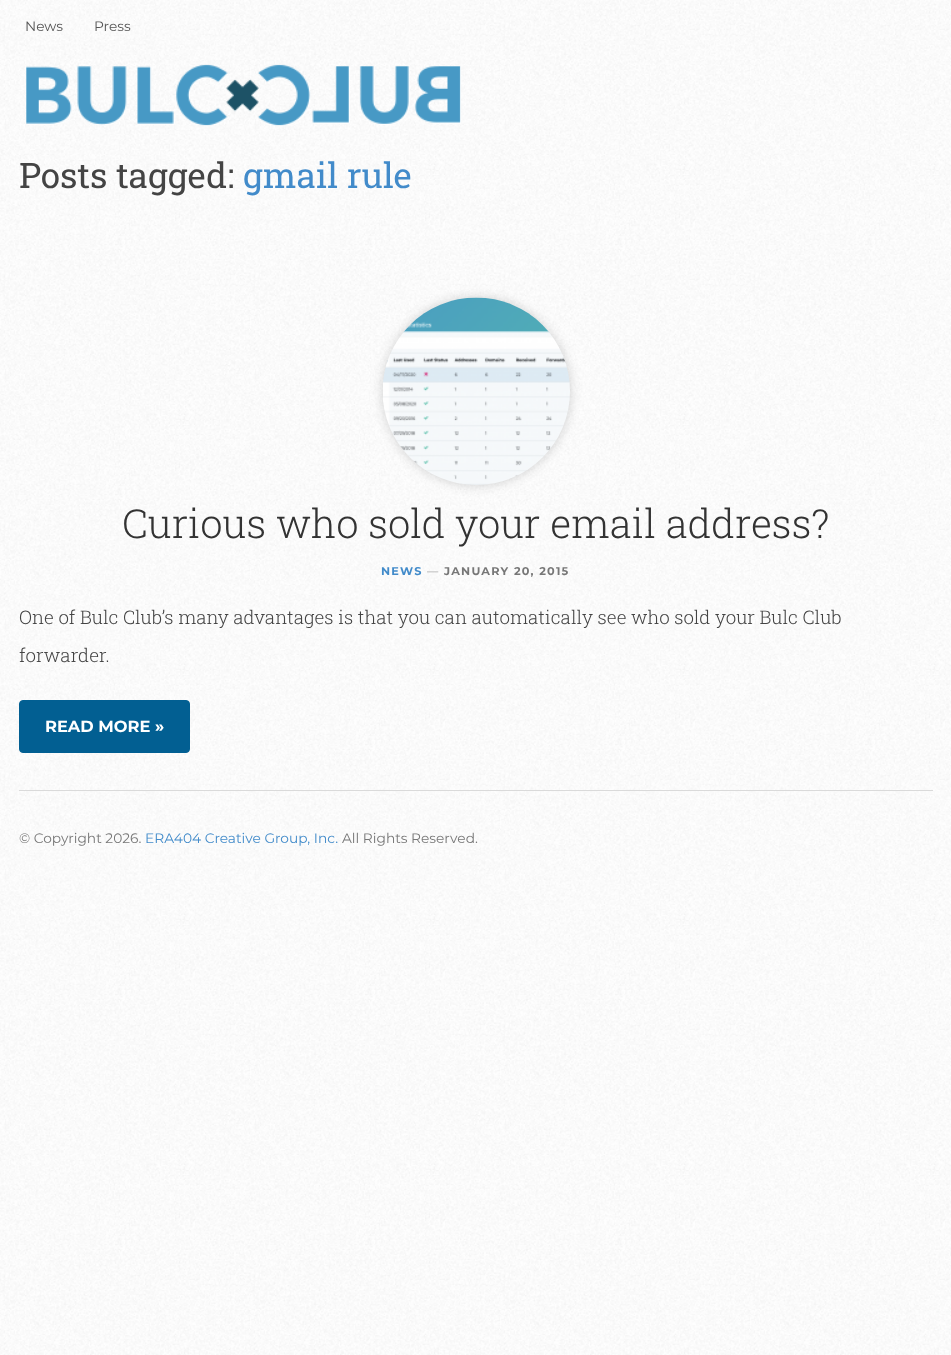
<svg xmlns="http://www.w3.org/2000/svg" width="951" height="1355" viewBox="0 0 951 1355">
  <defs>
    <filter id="blur1" x="-50%" y="-200%" width="200%" height="500%"><feGaussianBlur stdDeviation="6"/></filter>
  </defs>
  <rect width="100%" height="100%" fill="#ffffff"/>
  <image x="0" y="0" width="951" height="1355" href="img1.png"/>
  <text x="25" y="31" font-family="Montserrat" font-size="13.75" fill="#555555">News</text>
  <text x="94" y="31" font-family="Montserrat" font-size="13.75" fill="#555555">Press</text>
  <image x="26" y="64" width="435" height="62" href="img2.png"/>
  <text x="19" y="188" font-family="Roboto Slab" font-size="35" fill="#444444">Posts tagged:</text>
  <text x="243" y="188" font-family="Roboto Slab" font-size="35" fill="#428bca">gmail rule</text>
  <rect x="19" y="790" width="914" height="1" fill="#dadada"/>
  <rect x="383" y="298" width="187" height="187" rx="93.5" fill="#000000" fill-opacity="0.18" filter="url(#blur1)"/>
  <image x="383" y="297" width="187" height="188" href="img3.png"/>
  <text x="122" y="538" font-family="Roboto Slab" font-size="40" font-weight="300" fill="#333333">Curious who sold your email address?</text>
  <text x="381" y="575" font-family="Montserrat" font-size="11.25" font-weight="bold" letter-spacing="1.25" fill="#428bca">NEWS</text>
  <text x="427" y="575" font-family="Montserrat" font-size="11.25" font-weight="bold" letter-spacing="1.25" fill="#c6c6c6">—</text>
  <text x="444" y="575" font-family="Montserrat" font-size="11.25" font-weight="bold" letter-spacing="1.25" fill="#777777">JANUARY 20, 2015</text>
  <text x="19" y="624" font-family="Roboto Slab" font-size="18.75" font-weight="300" fill="#444444">One of Bulc Club’s many advantages is that you can automatically see who sold your Bulc Club</text>
  <text x="19" y="662" font-family="Roboto Slab" font-size="18.75" font-weight="300" fill="#444444">forwarder.</text>
  <rect x="19.5" y="700.5" width="170" height="52" rx="3.5" fill="#025f92" stroke="#025f92"/>
  <text x="45" y="732" font-family="Montserrat" font-size="16.25" font-weight="bold" fill="#ffffff">READ MORE »</text>
  <text x="19" y="843" font-family="Montserrat" font-size="13.75" fill="#777777">© Copyright 2026.</text>
  <text x="145" y="843" font-family="Montserrat" font-size="13.75" fill="#428bca">ERA404 Creative Group, Inc.</text>
  <text x="342" y="843" font-family="Montserrat" font-size="13.75" fill="#777777">All Rights Reserved.</text>
</svg>
